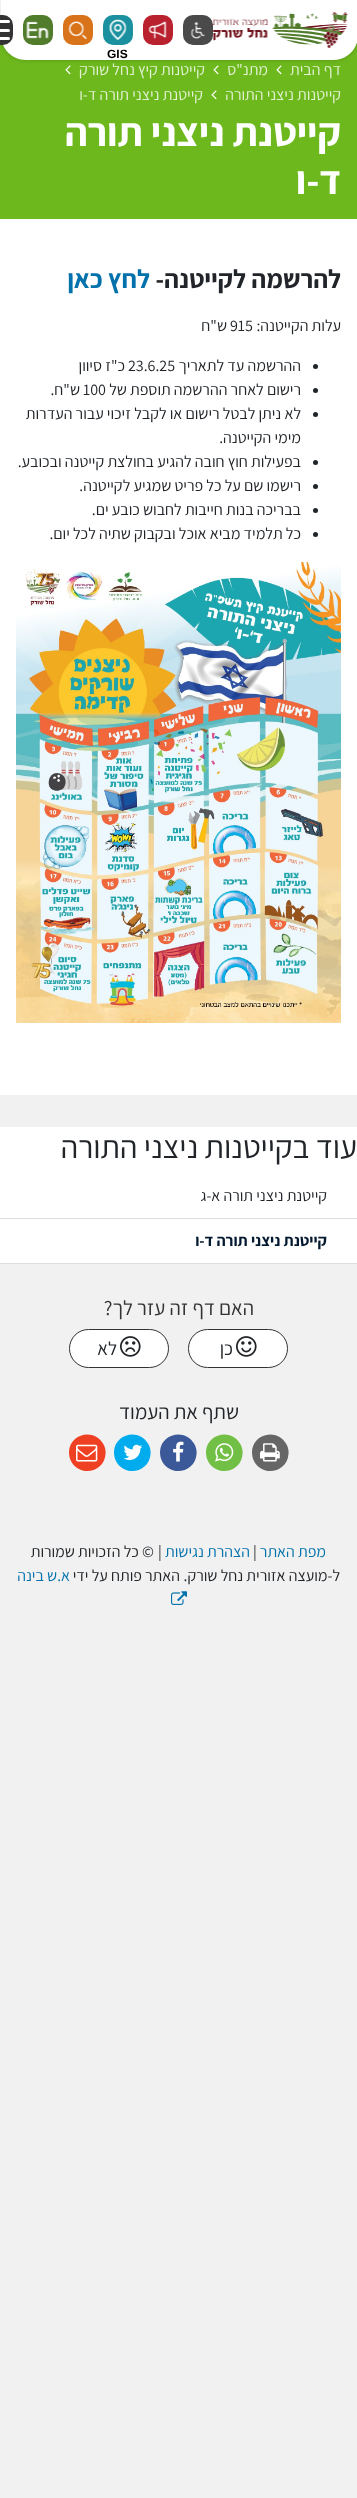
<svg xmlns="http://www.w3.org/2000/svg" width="357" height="2498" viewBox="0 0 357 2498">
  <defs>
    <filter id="blur1" x="-50%" y="-200%" width="200%" height="500%"><feGaussianBlur stdDeviation="2.5"/></filter>
  </defs>
  <rect width="100%" height="100%" fill="#f1f1f1"/>
  <rect x="0" y="42" width="357" height="177" fill="#6db81d"/>
  <image x="276" y="65" width="6" height="10" href="img7.png"/>
  <image x="213" y="65" width="6" height="10" href="img7.png"/>
  <image x="65" y="65" width="6" height="10" href="img7.png"/>
  <rect x="1" y="0" width="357" height="60" rx="25" fill="#000000" fill-opacity="0.2" filter="url(#blur1)"/>
  <path d="M1 0H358V35C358 49 347 60 333 60H26C12 60 1 49 1 35Z" fill="#ffffff"/>
  <rect x="183" y="15" width="30" height="30" rx="10" fill="#4a4a4a"/>
  <image x="212" y="12" width="136" height="36" href="img1.png"/>
  <image x="190" y="22" width="15" height="17" href="img2.png"/>
  <rect x="143" y="15" width="30" height="30" rx="10" fill="#b8212d"/>
  <image x="148" y="21" width="19" height="18" href="img3.png"/>
  <rect x="63" y="15" width="30" height="30" rx="10" fill="#d97319"/>
  <image x="68" y="21" width="19" height="18" href="img4.png"/>
  <rect x="23" y="15" width="30" height="30" rx="10" fill="#517c2c"/>
  <image x="26" y="21" width="23" height="18" href="img5.png"/>
  <rect x="-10" y="15" width="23" height="30" rx="10" fill="#333333"/>
  <rect x="-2" y="20" width="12" height="3" rx="1.5" fill="#ffffff"/>
  <rect x="-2" y="29" width="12" height="3" rx="1.5" fill="#ffffff"/>
  <rect x="-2" y="37" width="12" height="3" rx="1.5" fill="#ffffff"/>
  <rect x="103" y="15" width="30" height="30" rx="10" fill="#1b919f"/>
  <image x="109" y="19" width="18" height="21" href="img6.png"/>
  <text x="107" y="58" font-family="Liberation Sans" font-size="12" font-weight="bold" fill="#000000">GIS</text>
  <rect x="0" y="219" width="357" height="876" fill="#ffffff"/>
  <text x="341" y="75" font-family="Assistant" font-size="16" direction="rtl" fill="#e2f1d2">דף הבית</text>
  <text x="268" y="75" font-family="Assistant" font-size="16" direction="rtl" fill="#e2f1d2">מתנ"ס</text>
  <text x="205" y="75" font-family="Assistant" font-size="16" direction="rtl" fill="#e2f1d2">קייטנות קיץ נחל שורק</text>
  <text x="341" y="100" font-family="Assistant" font-size="16" direction="rtl" fill="#e2f1d2">קייטנות ניצני התורה</text>
  <image x="211" y="90" width="6" height="10" href="img7.png"/>
  <text x="203" y="100" font-family="Assistant" font-size="16" direction="rtl" fill="#e2f1d2">קייטנת ניצני תורה ד-ו</text>
  <text x="341" y="146" font-family="Assistant" font-size="40" font-weight="bold" direction="rtl" fill="#ffffff">קייטנת ניצני תורה</text>
  <text x="341" y="194" font-family="Assistant" font-size="40" font-weight="bold" direction="rtl" fill="#ffffff">ד-ו</text>
  <text x="341" y="288" font-family="Assistant" font-size="26" font-weight="bold" direction="rtl" fill="#212529">להרשמה לקייטנה-</text>
  <text x="150" y="288" font-family="Assistant" font-size="26" font-weight="bold" direction="rtl" fill="#0372ac">לחץ כאן</text>
  <text x="341" y="331" font-family="Assistant" font-size="16" direction="rtl" fill="#212529">עלות הקייטנה:</text>
  <text x="230" y="331" font-family="Assistant" font-size="16" fill="#212529">915</text>
  <text x="227" y="331" font-family="Assistant" font-size="16" direction="rtl" fill="#212529">ש"ח</text>
  <circle cx="315.5" cy="366.5" r="2.5" fill="#212529"/>
  <text x="301" y="371" font-family="Assistant" font-size="16" direction="rtl" fill="#212529">ההרשמה עד לתאריך</text>
  <text x="128" y="371" font-family="Assistant" font-size="16" fill="#212529">23.6.25</text>
  <text x="125" y="371" font-family="Assistant" font-size="16" direction="rtl" fill="#212529">כ"ז סיוון</text>
  <circle cx="315.5" cy="390.5" r="2.5" fill="#212529"/>
  <text x="301" y="395" font-family="Assistant" font-size="16" direction="rtl" fill="#212529">רישום לאחר ההרשמה תוספת של</text>
  <text x="83" y="395" font-family="Assistant" font-size="16" fill="#212529">100</text>
  <text x="80" y="395" font-family="Assistant" font-size="16" direction="rtl" fill="#212529">ש"ח.</text>
  <circle cx="315.5" cy="414.5" r="2.5" fill="#212529"/>
  <text x="301" y="419" font-family="Assistant" font-size="16" direction="rtl" fill="#212529">לא ניתן לבטל רישום או לקבל זיכוי עבור העדרות</text>
  <text x="301" y="443" font-family="Assistant" font-size="16" direction="rtl" fill="#212529">מימי הקייטנה.</text>
  <circle cx="315.5" cy="462.5" r="2.5" fill="#212529"/>
  <text x="301" y="467" font-family="Assistant" font-size="16" direction="rtl" fill="#212529">בפעילות חוץ חובה להגיע בחולצת קייטנה ובכובע.</text>
  <circle cx="315.5" cy="486.5" r="2.5" fill="#212529"/>
  <text x="301" y="491" font-family="Assistant" font-size="16" direction="rtl" fill="#212529">רישמו שם על כל פריט שמגיע לקייטנה.</text>
  <circle cx="315.5" cy="510.5" r="2.5" fill="#212529"/>
  <text x="301" y="515" font-family="Assistant" font-size="16" direction="rtl" fill="#212529">בבריכה בנות חייבות לחבוש כובע ים.</text>
  <circle cx="315.5" cy="534.5" r="2.5" fill="#212529"/>
  <text x="301" y="539" font-family="Assistant" font-size="16" direction="rtl" fill="#212529">כל תלמיד מביא אוכל ובקבוק שתיה לכל יום.</text>
  <image x="16" y="562" width="325" height="461" href="img8.png"/>
  <rect x="0" y="1127" width="357" height="136" fill="#ffffff"/>
  <text x="357" y="1158" font-family="Assistant" font-size="32" direction="rtl" fill="#212529">עוד בקייטנות ניצני התורה</text>
  <rect x="0" y="1218" width="357" height="1" fill="#dddddd"/>
  <text x="327" y="1201" font-family="Assistant" font-size="16" direction="rtl" fill="#212529">קייטנת ניצני תורה א-ג</text>
  <rect x="0" y="1263" width="357" height="1" fill="#dddddd"/>
  <text x="327" y="1246" font-family="Assistant" font-size="16" font-weight="bold" direction="rtl" fill="#031930">קייטנת ניצני תורה ד-ו</text>
  <text x="254" y="1315" font-family="Assistant" font-size="20.75" direction="rtl" fill="#333333">האם דף זה עזר לך?</text>
  <rect x="188.5" y="1329.5" width="99" height="38" rx="19" fill="#ffffff" stroke="#333333"/>
  <image x="236" y="1336" width="21" height="21" href="img9.png"/>
  <text x="233" y="1355" font-family="Assistant" font-size="19" direction="rtl" fill="#212529">כן</text>
  <rect x="69.5" y="1329.5" width="99" height="38" rx="19" fill="#ffffff" stroke="#333333"/>
  <image x="120" y="1336" width="21" height="21" href="img10.png"/>
  <text x="117" y="1355" font-family="Assistant" font-size="19" direction="rtl" fill="#212529">לא</text>
  <text x="239" y="1419" font-family="Assistant" font-size="20.75" direction="rtl" fill="#212529">שתף את העמוד</text>
  <path d="M286 1443.5C288 1446.5 289 1450.5 288.5 1454C287.5 1472 263.5 1477.5 254.5 1462C252.5 1459 252 1455 252 1451.5C253 1433.5 277 1428 286 1443.5Z" fill="#666666"/>
  <image x="260" y="1443" width="20" height="19" href="img11.png"/>
  <path d="M240 1443.5C242 1446.5 243 1450.5 242.5 1454C241.5 1472 217.5 1477.5 208.5 1462C206.5 1459 206 1455 206 1451.5C207 1433.5 231 1428 240 1443.5Z" fill="#71bf44"/>
  <image x="215" y="1443" width="19" height="19" href="img12.png"/>
  <path d="M194 1443.5C196 1446.5 197 1450.5 196.5 1454C195.5 1472 171.5 1477.5 162.5 1462C160.5 1459 160 1455 160 1451.5C161 1433.5 185 1428 194 1443.5Z" fill="#3b5998"/>
  <image x="173" y="1441" width="11" height="21" href="img13.png"/>
  <path d="M148 1443.5C150 1446.5 151 1450.5 150.5 1454C149.5 1472 125.5 1477.5 116.5 1462C114.5 1459 114 1455 114 1451.5C115 1433.5 139 1428 148 1443.5Z" fill="#00aced"/>
  <image x="123" y="1444" width="20" height="16" href="img14.png"/>
  <path d="M103 1443.5C105 1446.5 106 1450.5 105.5 1454C104.5 1472 80.5 1477.5 71.5 1462C69.5 1459 69 1455 69 1451.5C70 1433.5 94 1428 103 1443.5Z" fill="#ef4023"/>
  <image x="76" y="1444" width="22" height="18" href="img15.png"/>
  <text x="326" y="1557" font-family="Assistant" font-size="16" direction="rtl" fill="#0372ac">מפת האתר</text>
  <text x="253" y="1557" font-family="Assistant" font-size="16" fill="#212529">|</text>
  <text x="250" y="1557" font-family="Assistant" font-size="16" direction="rtl" fill="#0372ac">הצהרת נגישות</text>
  <text x="158" y="1557" font-family="Assistant" font-size="16" fill="#212529">|</text>
  <text x="154" y="1557" font-family="Assistant" font-size="16" direction="rtl" fill="#212529">© כל הזכויות שמורות</text>
  <text x="340" y="1581" font-family="Assistant" font-size="16" direction="rtl" fill="#212529">ל-מועצה אזורית נחל שורק.</text>
  <text x="180" y="1581" font-family="Assistant" font-size="16" direction="rtl" fill="#212529">האתר פותח על ידי</text>
  <text x="70" y="1581" font-family="Assistant" font-size="16" direction="rtl" fill="#0372ac">א.ש בינה</text>
  <image x="171" y="1591" width="16" height="14" href="img16.png"/>
</svg>
